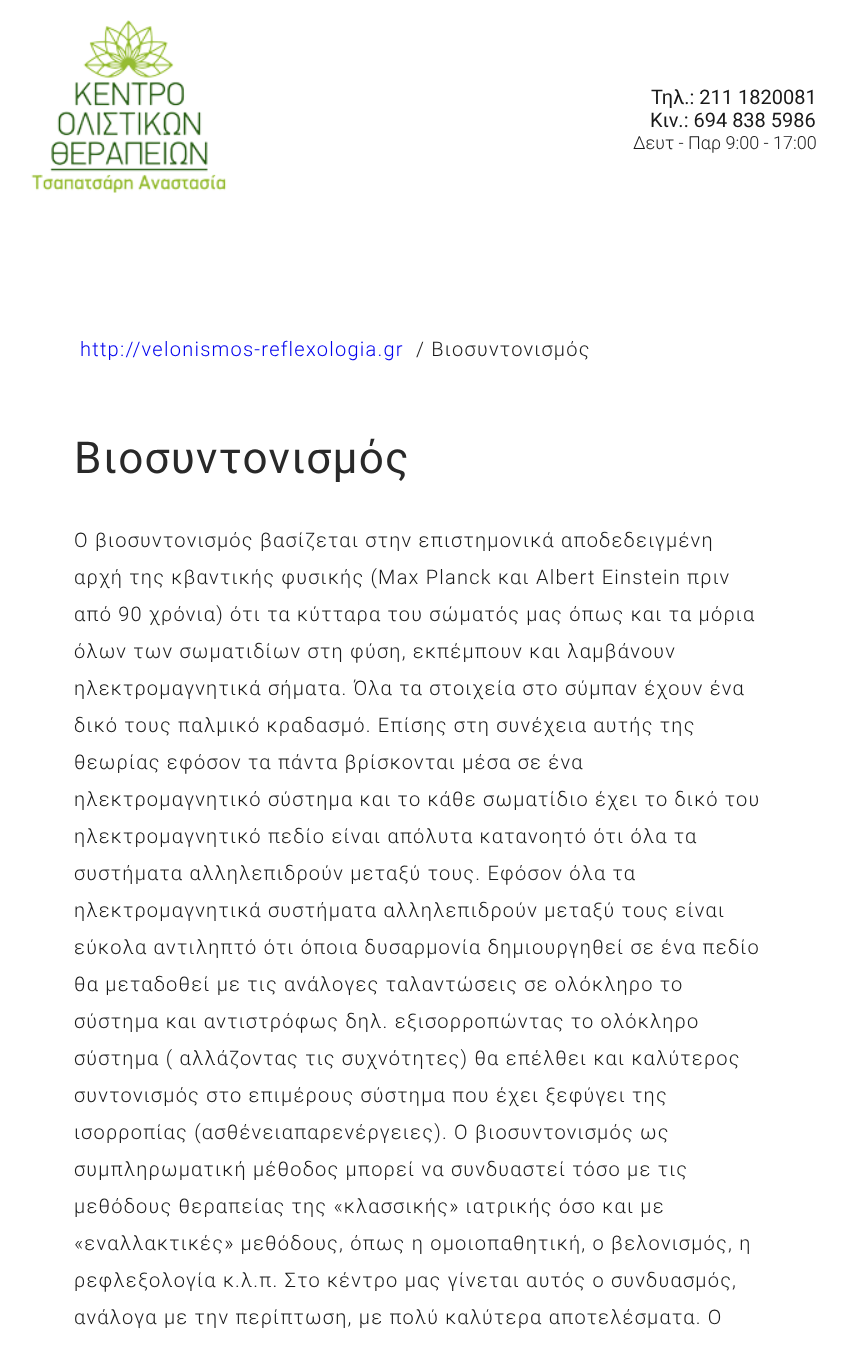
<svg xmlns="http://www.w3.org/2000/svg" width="841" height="1347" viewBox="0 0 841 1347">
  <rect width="100%" height="100%" fill="#ffffff"/>
  <image x="31" y="20" width="196" height="173" href="img1.png"/>
  <text x="651" y="104" font-family="Roboto" font-size="20" fill="#191919">Τηλ.: 211 1820081</text>
  <text x="650" y="127" font-family="Roboto" font-size="20" fill="#191919">Κιν.: 694 838 5986</text>
  <text x="633" y="149" font-family="Roboto" font-size="18" font-weight="300" fill="#191919">Δευτ - Παρ 9:00 - 17:00</text>
  <text x="80" y="356" font-family="Roboto" font-size="20" font-weight="300" letter-spacing="1.25" fill="#0000ee">http://velonismos-reflexologia.gr</text>
  <text x="416" y="356" font-family="Roboto" font-size="20" font-weight="300" letter-spacing="1.25" fill="#191919">/ Βιοσυντονισμός</text>
  <text x="74" y="473" font-family="Roboto" font-size="44" letter-spacing="1.25" fill="#292929">Βιοσυντονισμός</text>
  <text x="74" y="547" font-family="Roboto" font-size="20" font-weight="300" letter-spacing="1.25" fill="#191919">Ο βιοσυντονισμός βασίζεται στην επιστημονικά αποδεδειγμένη</text>
  <text x="74" y="584" font-family="Roboto" font-size="20" font-weight="300" letter-spacing="1.25" fill="#191919">αρχή της κβαντικής φυσικής (Max Planck και Albert Einstein πριν</text>
  <text x="74" y="621" font-family="Roboto" font-size="20" font-weight="300" letter-spacing="1.25" fill="#191919">από 90 χρόνια) ότι τα κύτταρα του σώματός μας όπως και τα μόρια</text>
  <text x="74" y="658" font-family="Roboto" font-size="20" font-weight="300" letter-spacing="1.25" fill="#191919">όλων των σωματιδίων στη φύση, εκπέμπουν και λαμβάνουν</text>
  <text x="74" y="695" font-family="Roboto" font-size="20" font-weight="300" letter-spacing="1.25" fill="#191919">ηλεκτρομαγνητικά σήματα. Όλα τα στοιχεία στο σύμπαν έχουν ένα</text>
  <text x="74" y="732" font-family="Roboto" font-size="20" font-weight="300" letter-spacing="1.25" fill="#191919">δικό τους παλμικό κραδασμό. Επίσης στη συνέχεια αυτής της</text>
  <text x="74" y="769" font-family="Roboto" font-size="20" font-weight="300" letter-spacing="1.25" fill="#191919">θεωρίας εφόσον τα πάντα βρίσκονται μέσα σε ένα</text>
  <text x="74" y="806" font-family="Roboto" font-size="20" font-weight="300" letter-spacing="1.25" fill="#191919">ηλεκτρομαγνητικό σύστημα και το κάθε σωματίδιο έχει το δικό του</text>
  <text x="74" y="843" font-family="Roboto" font-size="20" font-weight="300" letter-spacing="1.25" fill="#191919">ηλεκτρομαγνητικό πεδίο είναι απόλυτα κατανοητό ότι όλα τα</text>
  <text x="74" y="880" font-family="Roboto" font-size="20" font-weight="300" letter-spacing="1.25" fill="#191919">συστήματα αλληλεπιδρούν μεταξύ τους. Εφόσον όλα τα</text>
  <text x="74" y="917" font-family="Roboto" font-size="20" font-weight="300" letter-spacing="1.25" fill="#191919">ηλεκτρομαγνητικά συστήματα αλληλεπιδρούν μεταξύ τους είναι</text>
  <text x="74" y="954" font-family="Roboto" font-size="20" font-weight="300" letter-spacing="1.25" fill="#191919">εύκολα αντιληπτό ότι όποια δυσαρμονία δημιουργηθεί σε ένα πεδίο</text>
  <text x="74" y="991" font-family="Roboto" font-size="20" font-weight="300" letter-spacing="1.25" fill="#191919">θα μεταδοθεί με τις ανάλογες ταλαντώσεις σε ολόκληρο το</text>
  <text x="74" y="1028" font-family="Roboto" font-size="20" font-weight="300" letter-spacing="1.25" fill="#191919">σύστημα και αντιστρόφως δηλ. εξισορροπώντας το ολόκληρο</text>
  <text x="74" y="1065" font-family="Roboto" font-size="20" font-weight="300" letter-spacing="1.25" fill="#191919">σύστημα ( αλλάζοντας τις συχνότητες) θα επέλθει και καλύτερος</text>
  <text x="74" y="1102" font-family="Roboto" font-size="20" font-weight="300" letter-spacing="1.25" fill="#191919">συντονισμός στο επιμέρους σύστημα που έχει ξεφύγει της</text>
  <text x="74" y="1139" font-family="Roboto" font-size="20" font-weight="300" letter-spacing="1.25" fill="#191919">ισορροπίας (ασθένειαπαρενέργειες). Ο βιοσυντονισμός ως</text>
  <text x="74" y="1176" font-family="Roboto" font-size="20" font-weight="300" letter-spacing="1.25" fill="#191919">συμπληρωματική μέθοδος μπορεί να συνδυαστεί τόσο με τις</text>
  <text x="74" y="1213" font-family="Roboto" font-size="20" font-weight="300" letter-spacing="1.25" fill="#191919">μεθόδους θεραπείας της «κλασσικής» ιατρικής όσο και με</text>
  <text x="74" y="1250" font-family="Roboto" font-size="20" font-weight="300" letter-spacing="1.25" fill="#191919">«εναλλακτικές» μεθόδους, όπως η ομοιοπαθητική, ο βελονισμός, η</text>
  <text x="74" y="1287" font-family="Roboto" font-size="20" font-weight="300" letter-spacing="1.25" fill="#191919">ρεφλεξολογία κ.λ.π. Στο κέντρο μας γίνεται αυτός ο συνδυασμός,</text>
  <text x="74" y="1324" font-family="Roboto" font-size="20" font-weight="300" letter-spacing="1.25" fill="#191919">ανάλογα με την περίπτωση, με πολύ καλύτερα αποτελέσματα. Ο</text>
</svg>
